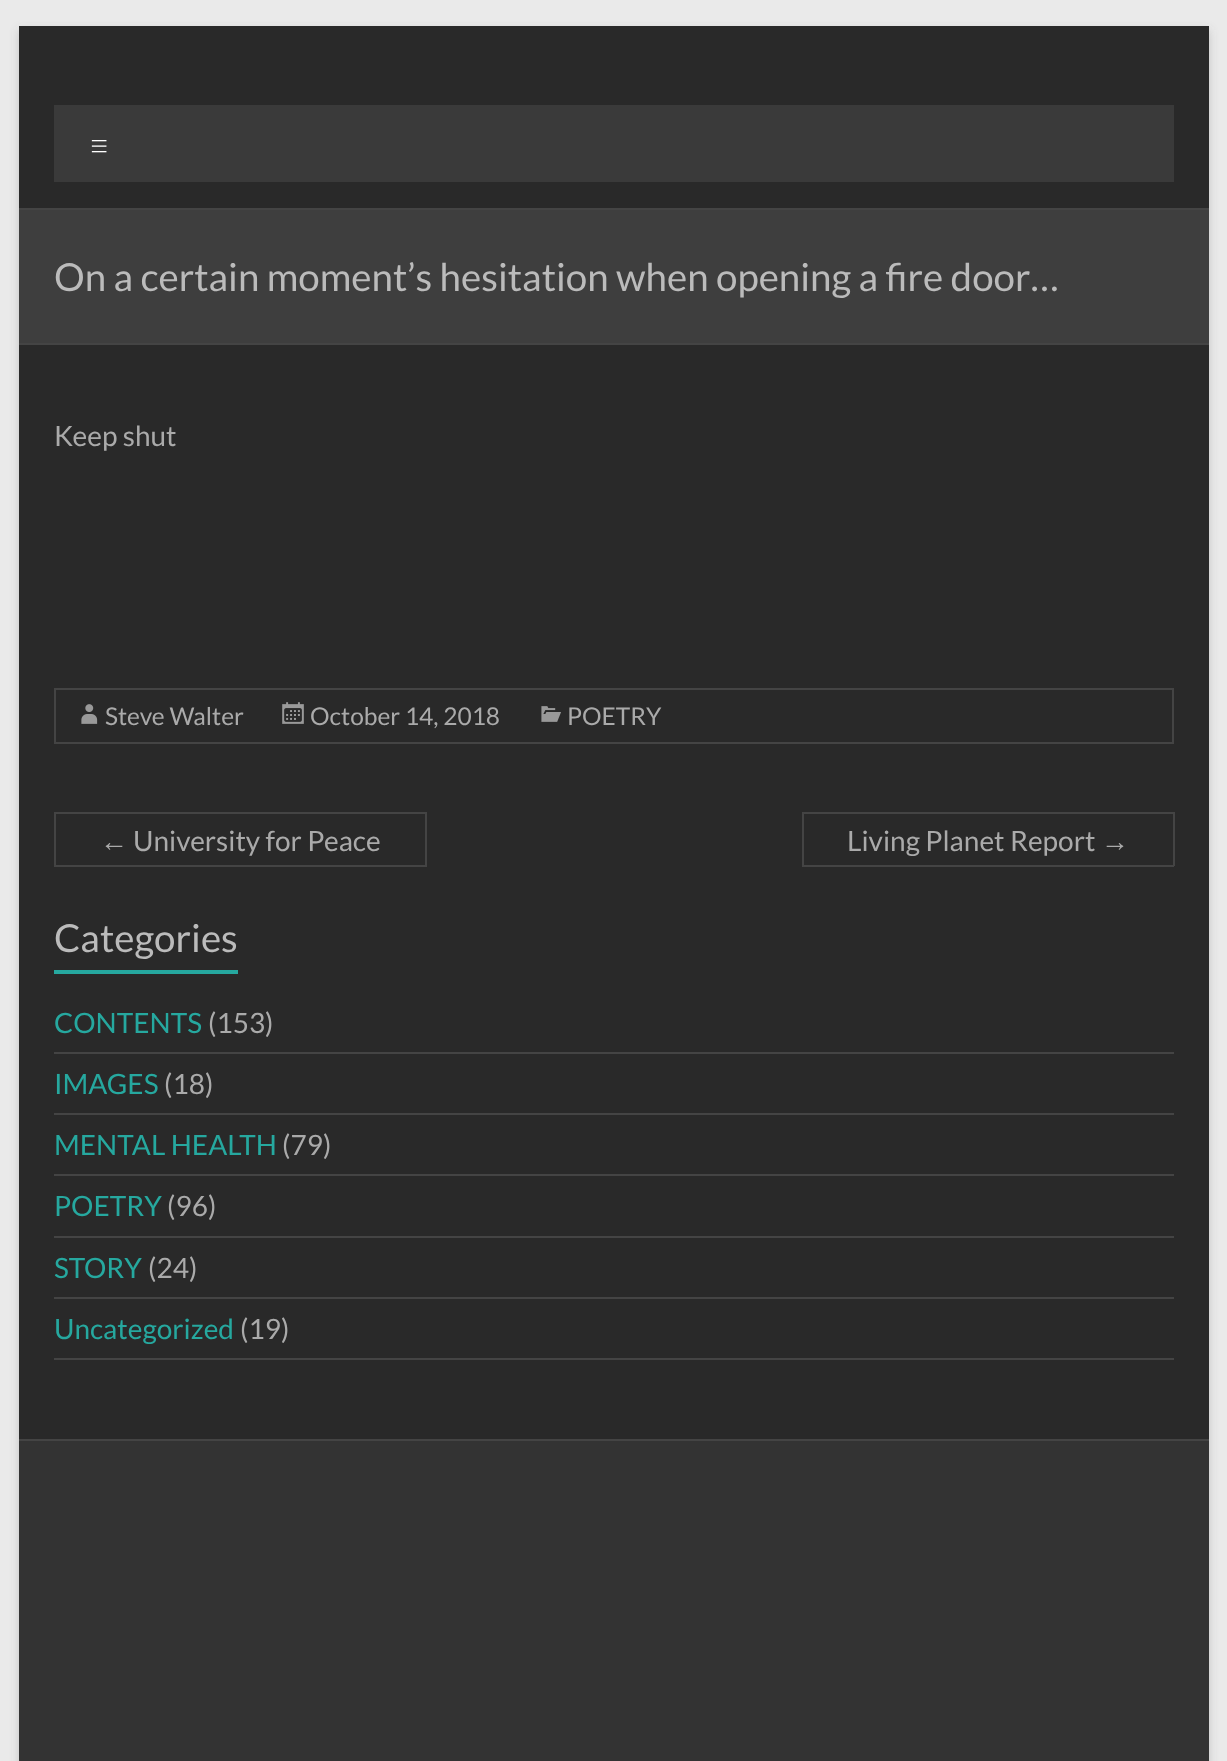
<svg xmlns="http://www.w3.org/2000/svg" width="1227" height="1761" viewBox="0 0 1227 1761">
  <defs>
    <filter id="blur1" x="-50%" y="-200%" width="200%" height="500%"><feGaussianBlur stdDeviation="5"/></filter>
  </defs>
  <rect width="100%" height="100%" fill="#eaeaea"/>
  <rect x="19" y="30" width="1190" height="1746" fill="#646464" fill-opacity="0.3" filter="url(#blur1)"/>
  <rect x="19" y="26" width="1190" height="1413" fill="#292929"/>
  <rect x="19" y="208" width="1190" height="2" fill="#444444"/>
  <rect x="54" y="105" width="1120" height="77" fill="#3a3a3a"/>
  <text x="89" y="158" font-family="Lato" font-size="35" font-weight="300" fill="#ffffff">≡</text>
  <rect x="19" y="210" width="1190" height="133" fill="#3e3e3e"/>
  <rect x="19" y="343" width="1190" height="2" fill="#444444"/>
  <text x="54" y="291" font-family="Lato" font-size="38.5" fill="#bbbbbb">On a certain moment’s hesitation when opening a fire door…</text>
  <text x="54" y="446" font-family="Lato" font-size="28" fill="#aaaaaa">Keep shut</text>
  <rect x="55" y="689" width="1118" height="54" fill="none" stroke="#444444" stroke-width="2"/>
  <image x="81" y="704" width="17" height="20" href="img1.png"/>
  <text x="105" y="725" font-family="Lato" font-size="24.5" fill="#aaaaaa">Steve Walter</text>
  <image x="282" y="702" width="22" height="22" href="img2.png"/>
  <text x="310" y="725" font-family="Lato" font-size="24.5" fill="#aaaaaa">October 14, 2018</text>
  <image x="541" y="706" width="20" height="16" href="img3.png"/>
  <text x="567" y="725" font-family="Lato" font-size="24.5" fill="#aaaaaa">POETRY</text>
  <text x="100" y="851" font-family="Liberation Sans" font-size="28" fill="#aaaaaa">←</text>
  <rect x="54" y="865" width="74" height="2" fill="#444444"/>
  <rect x="54" y="812" width="373" height="2" fill="#444444"/>
  <rect x="54" y="812" width="2" height="54" fill="#444444"/>
  <rect x="425" y="812" width="2" height="54" fill="#444444"/>
  <rect x="128" y="865" width="299" height="2" fill="#444444"/>
  <text x="133" y="851" font-family="Lato" font-size="28" fill="#aaaaaa">University for Peace</text>
  <text x="847" y="851" font-family="Lato" font-size="28" fill="#aaaaaa">Living Planet Report</text>
  <rect x="802" y="812" width="372" height="2" fill="#444444"/>
  <rect x="802" y="865" width="299" height="2" fill="#444444"/>
  <rect x="802" y="812" width="2" height="54" fill="#444444"/>
  <text x="1101" y="851" font-family="Liberation Sans" font-size="28" fill="#aaaaaa">→</text>
  <rect x="1173" y="812" width="2" height="54" fill="#444444"/>
  <rect x="1101" y="865" width="73" height="2" fill="#444444"/>
  <text x="54" y="952" font-family="Lato" font-size="38.5" fill="#bbbbbb">Categories</text>
  <rect x="54" y="970" width="184" height="4" fill="#26a89f"/>
  <rect x="54" y="1052" width="1120" height="2" fill="#444444"/>
  <text x="54" y="1033" font-family="Lato" font-size="28" fill="#26a89f">CONTENTS</text>
  <text x="208" y="1033" font-family="Lato" font-size="28" fill="#aaaaaa">(153)</text>
  <rect x="54" y="1113" width="1120" height="2" fill="#444444"/>
  <text x="54" y="1094" font-family="Lato" font-size="28" fill="#26a89f">IMAGES</text>
  <text x="164" y="1094" font-family="Lato" font-size="28" fill="#aaaaaa">(18)</text>
  <rect x="54" y="1174" width="1120" height="2" fill="#444444"/>
  <text x="54" y="1155" font-family="Lato" font-size="28" fill="#26a89f">MENTAL HEALTH</text>
  <text x="282" y="1155" font-family="Lato" font-size="28" fill="#aaaaaa">(79)</text>
  <rect x="54" y="1236" width="1120" height="2" fill="#444444"/>
  <text x="54" y="1216" font-family="Lato" font-size="28" fill="#26a89f">POETRY</text>
  <text x="167" y="1216" font-family="Lato" font-size="28" fill="#aaaaaa">(96)</text>
  <rect x="54" y="1297" width="1120" height="2" fill="#444444"/>
  <text x="54" y="1278" font-family="Lato" font-size="28" fill="#26a89f">STORY</text>
  <text x="148" y="1278" font-family="Lato" font-size="28" fill="#aaaaaa">(24)</text>
  <rect x="54" y="1358" width="1120" height="2" fill="#444444"/>
  <text x="54" y="1339" font-family="Lato" font-size="28" fill="#26a89f">Uncategorized</text>
  <text x="240" y="1339" font-family="Lato" font-size="28" fill="#aaaaaa">(19)</text>
  <rect x="19" y="1441" width="1190" height="320" fill="#333333"/>
  <rect x="19" y="1439" width="1190" height="2" fill="#444444"/>
</svg>
